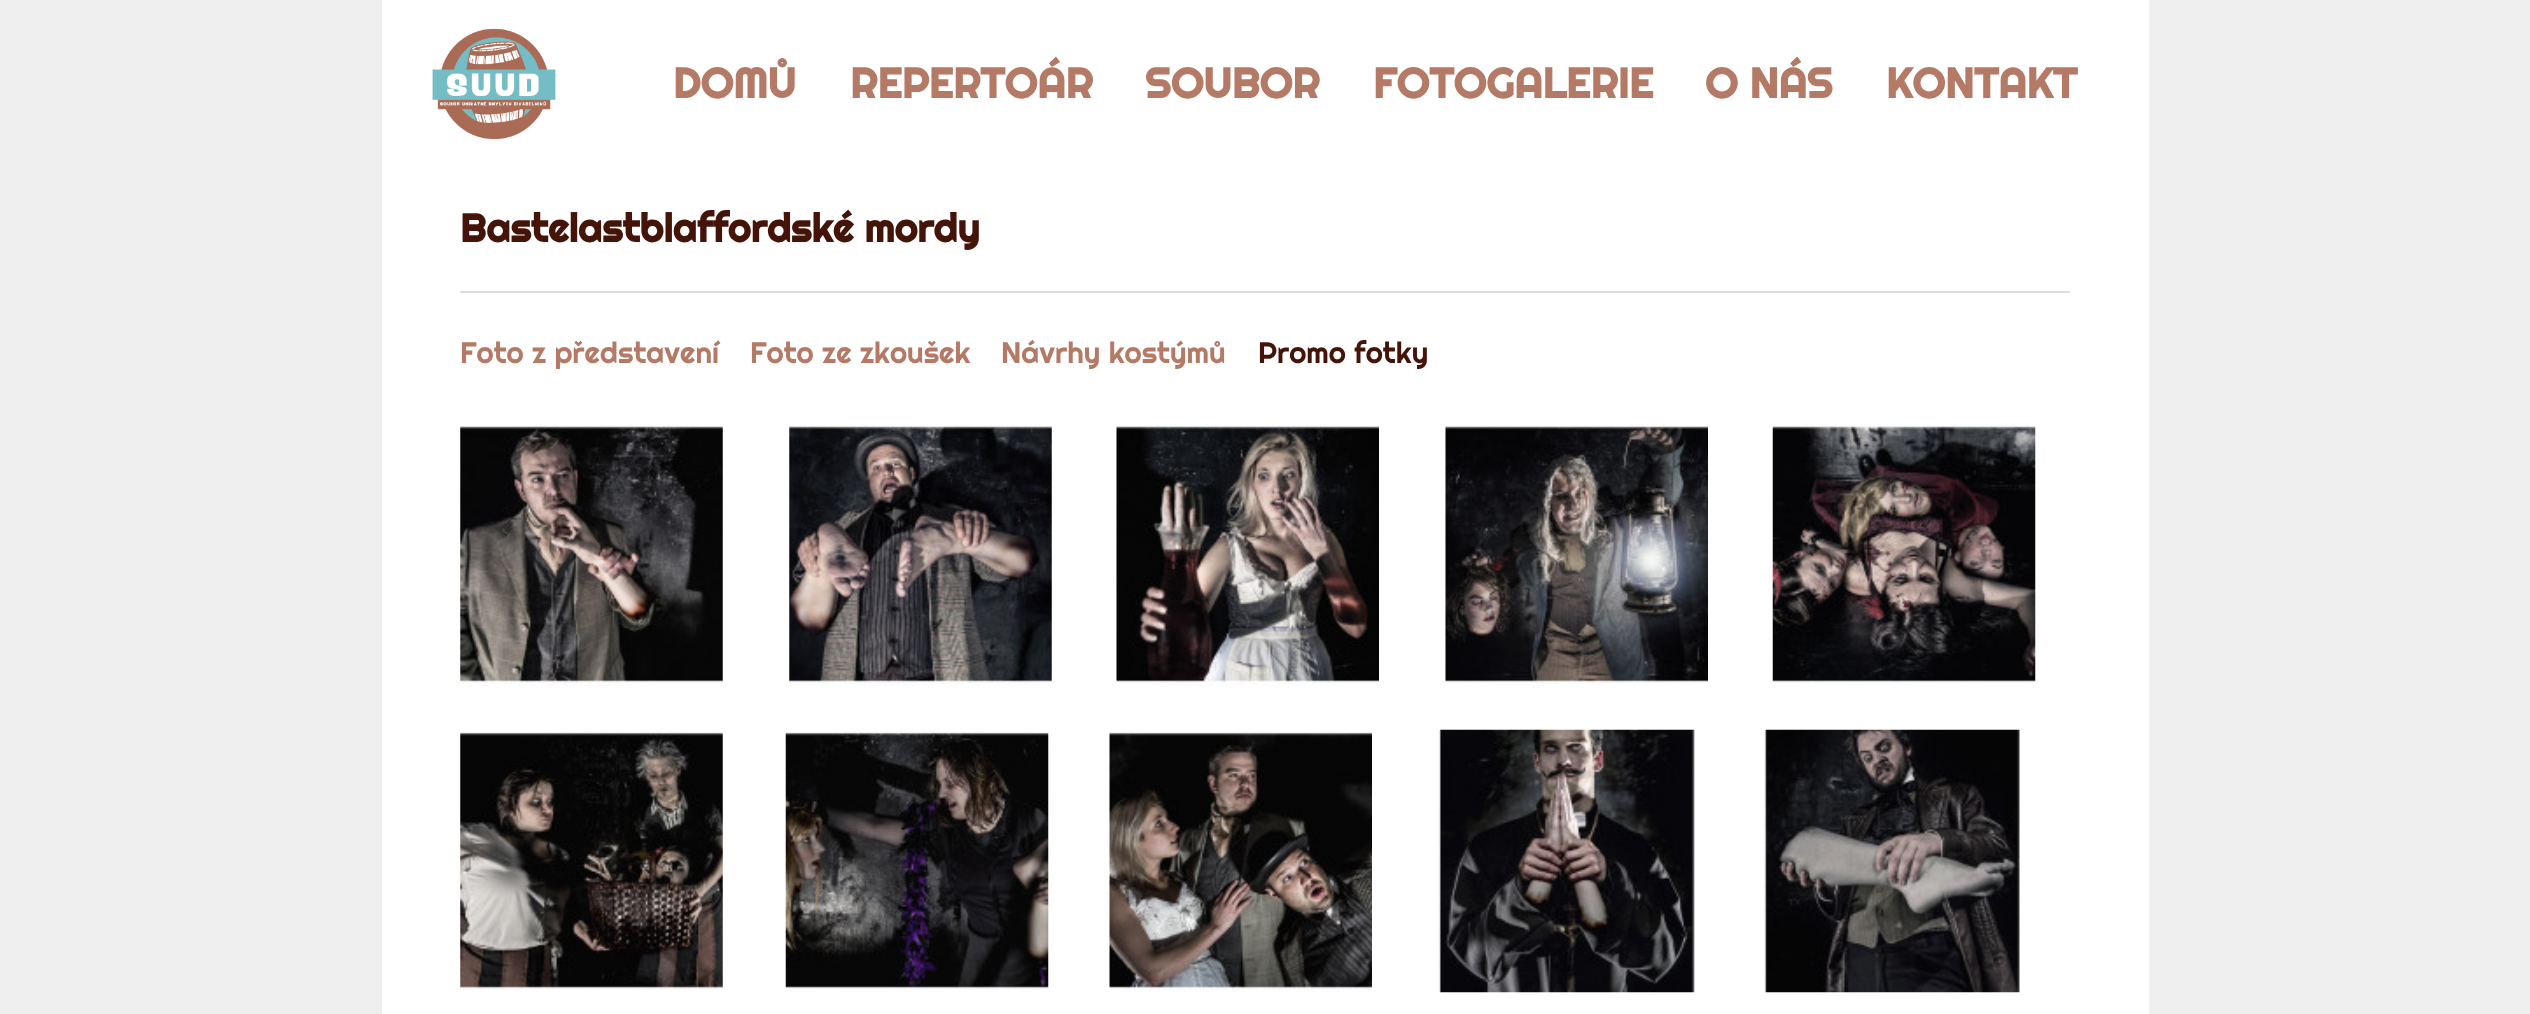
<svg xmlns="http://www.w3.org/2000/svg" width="2530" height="1014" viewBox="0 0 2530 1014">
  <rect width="100%" height="100%" fill="#efefef"/>
  <rect x="382" y="0" width="1767" height="1014" fill="#ffffff"/>
  <image x="432" y="28" width="124" height="111" href="img1.png"/>
  <text x="673" y="98" font-family="Righteous" font-size="42" font-weight="bold" fill="#b47a66">DOMŮ</text>
  <text x="850" y="98" font-family="Righteous" font-size="42" font-weight="bold" fill="#b47a66">REPERTOÁR</text>
  <text x="1145" y="98" font-family="Righteous" font-size="42" font-weight="bold" fill="#b47a66">SOUBOR</text>
  <text x="1373" y="98" font-family="Righteous" font-size="42" font-weight="bold" fill="#b47a66">FOTOGALERIE</text>
  <text x="1705" y="98" font-family="Righteous" font-size="42" font-weight="bold" fill="#b47a66">O NÁS</text>
  <text x="1886" y="98" font-family="Righteous" font-size="42" font-weight="bold" fill="#b47a66">KONTAKT</text>
  <text x="460" y="242" font-family="Righteous" font-size="39.4" font-weight="bold" fill="#451409">Bastelastblaffordské mordy</text>
  <rect x="460" y="291" width="1610" height="2" fill="#dddddd"/>
  <text x="460" y="363" font-family="Righteous" font-size="29.5" fill="#b47a66">Foto z představení</text>
  <text x="750" y="363" font-family="Righteous" font-size="29.5" fill="#b47a66">Foto ze zkoušek</text>
  <text x="1001" y="363" font-family="Righteous" font-size="29.5" fill="#b47a66">Návrhy kostýmů</text>
  <text x="1258" y="363" font-family="Righteous" font-size="29.5" fill="#451409">Promo fotky</text>
  <image x="460" y="423" width="263" height="263" href="img2.png"/>
  <image x="789" y="424" width="263" height="262" href="img3.png"/>
  <image x="1116" y="424" width="263" height="262" href="img4.png"/>
  <image x="1445" y="424" width="263" height="262" href="img5.png"/>
  <image x="1772" y="423" width="264" height="260" href="img6.png"/>
  <image x="460" y="730" width="263" height="260" href="img7.png"/>
  <image x="785" y="730" width="264" height="261" href="img8.png"/>
  <image x="1109" y="732" width="263" height="260" href="img9.png"/>
  <image x="1435" y="729" width="260" height="264" href="img10.png"/>
  <image x="1764" y="729" width="256" height="264" href="img11.png"/>
</svg>
